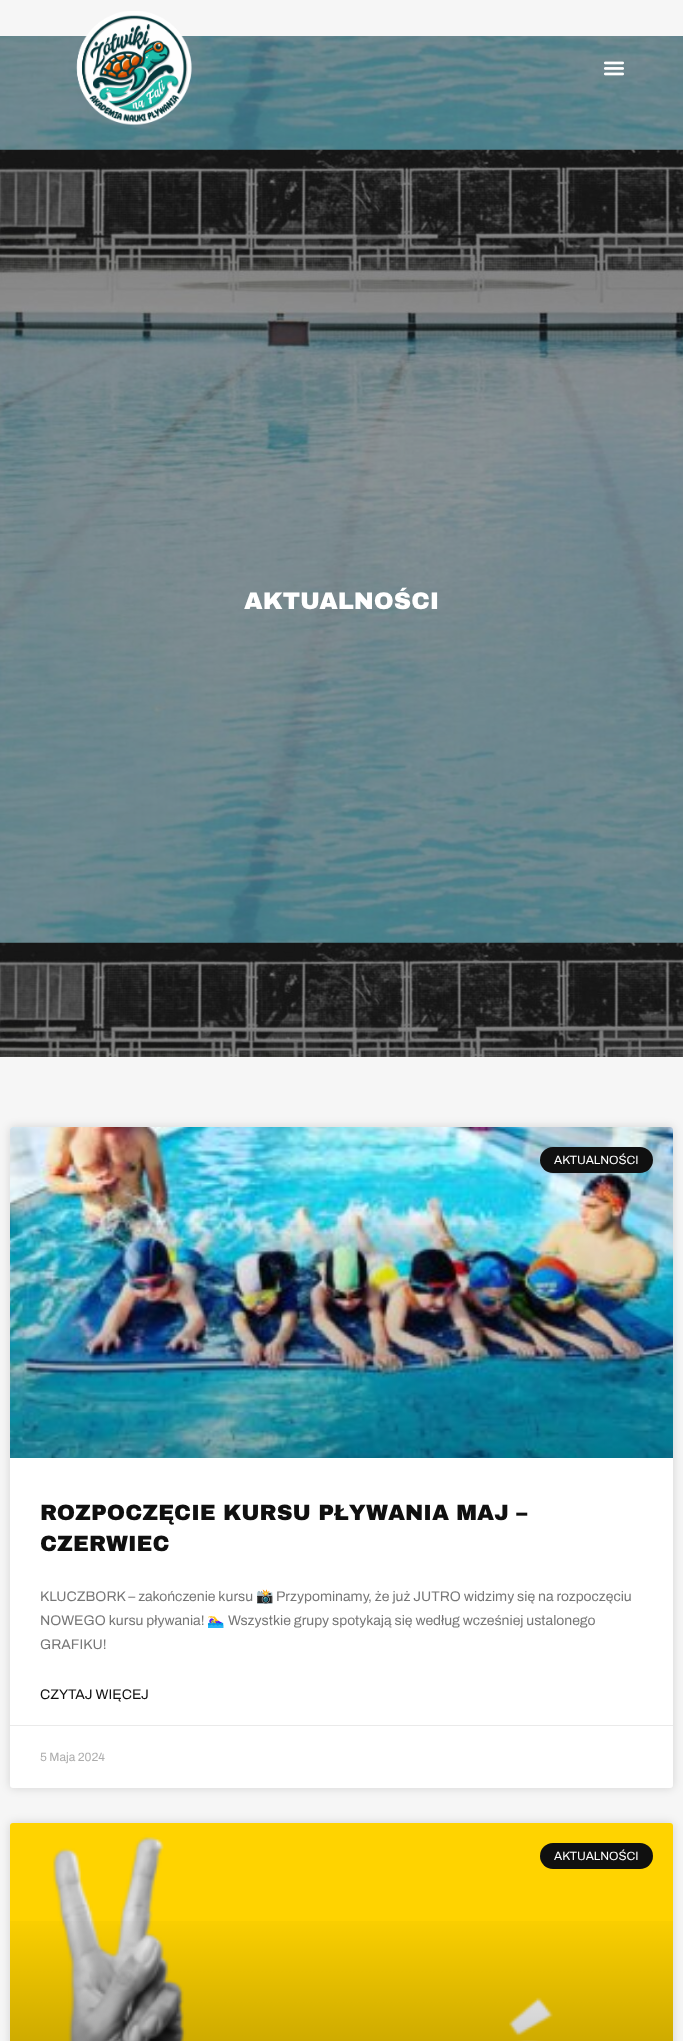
<svg xmlns="http://www.w3.org/2000/svg" width="683" height="2041" viewBox="0 0 683 2041">
  <defs>
    <filter id="blur1" x="-50%" y="-200%" width="200%" height="500%"><feGaussianBlur stdDeviation="5"/></filter>
    <linearGradient id="g1" gradientUnits="userSpaceOnUse" x1="342" y1="1458" x2="342" y2="1127"><stop offset="0" stop-color="#000000" stop-opacity="0.35"/><stop offset="0.75" stop-color="#000000" stop-opacity="0"/></linearGradient>
    <linearGradient id="g2" gradientUnits="userSpaceOnUse" x1="342" y1="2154" x2="342" y2="1823"><stop offset="0" stop-color="#000000" stop-opacity="0.35"/><stop offset="0.75" stop-color="#000000" stop-opacity="0"/></linearGradient>
  </defs>
  <rect width="100%" height="100%" fill="#f6f6f6"/>
  <image x="0" y="36" width="683" height="1021" href="img3.png"/>
  <image x="76" y="11" width="116" height="115" href="img1.png"/>
  <image x="604" y="61" width="20" height="15" href="img2.png"/>
  <text x="244" y="609" font-family="Archivo Black" font-size="24" font-weight="900" fill="#ffffff">AKTUALNOŚCI</text>
  <rect x="10" y="1127" width="663" height="661" rx="3" fill="#000000" fill-opacity="0.15" filter="url(#blur1)"/>
  <rect x="10" y="1127" width="663" height="661" rx="3" fill="#ffffff"/>
  <image x="10" y="1127" width="663" height="331" href="img4.png"/>
  <rect x="10" y="1225" width="663" height="233" fill="url(#g1)"/>
  <rect x="540" y="1147" width="113" height="26" rx="13" fill="#101010"/>
  <text x="554" y="1164" font-family="Archivo" font-size="12" fill="#ffffff">AKTUALNOŚCI</text>
  <text x="40" y="1520" font-family="Archivo Black" font-size="22" font-weight="900" fill="#101010">ROZPOCZĘCIE KURSU PŁYWANIA MAJ –</text>
  <text x="40" y="1551" font-family="Archivo Black" font-size="22" font-weight="900" fill="#101010">CZERWIEC</text>
  <text x="40" y="1601" font-family="Archivo" font-size="14" fill="#777777">KLUCZBORK – zakończenie kursu</text>
  <text x="256" y="1601" font-family="Noto Color Emoji" font-size="14" fill="#777777">📸</text>
  <text x="276" y="1601" font-family="Archivo" font-size="14" fill="#777777">Przypominamy, że już JUTRO widzimy się na rozpoczęciu</text>
  <text x="40" y="1625" font-family="Archivo" font-size="14" fill="#777777">NOWEGO kursu pływania!</text>
  <text x="207" y="1625" font-family="Noto Color Emoji" font-size="14" fill="#777777">🏊‍♀️</text>
  <text x="228" y="1625" font-family="Archivo" font-size="14" fill="#777777">Wszystkie grupy spotykają się według wcześniej ustalonego</text>
  <text x="40" y="1649" font-family="Archivo" font-size="14" fill="#777777">GRAFIKU!</text>
  <text x="40" y="1699" font-family="Archivo" font-size="14" fill="#101010">CZYTAJ WIĘCEJ</text>
  <rect x="10" y="1725" width="663" height="1" fill="#eaeaea"/>
  <text x="40" y="1761" font-family="Archivo" font-size="12" fill="#adadad">5 Maja 2024</text>
  <rect x="10" y="1823" width="663" height="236" rx="3" fill="#000000" fill-opacity="0.15" filter="url(#blur1)"/>
  <image x="10" y="1823" width="663" height="218" href="img5.png"/>
  <rect x="10" y="1921" width="663" height="120" fill="url(#g2)"/>
  <rect x="540" y="1843" width="113" height="26" rx="13" fill="#101010"/>
  <text x="554" y="1860" font-family="Archivo" font-size="12" fill="#ffffff">AKTUALNOŚCI</text>
</svg>
